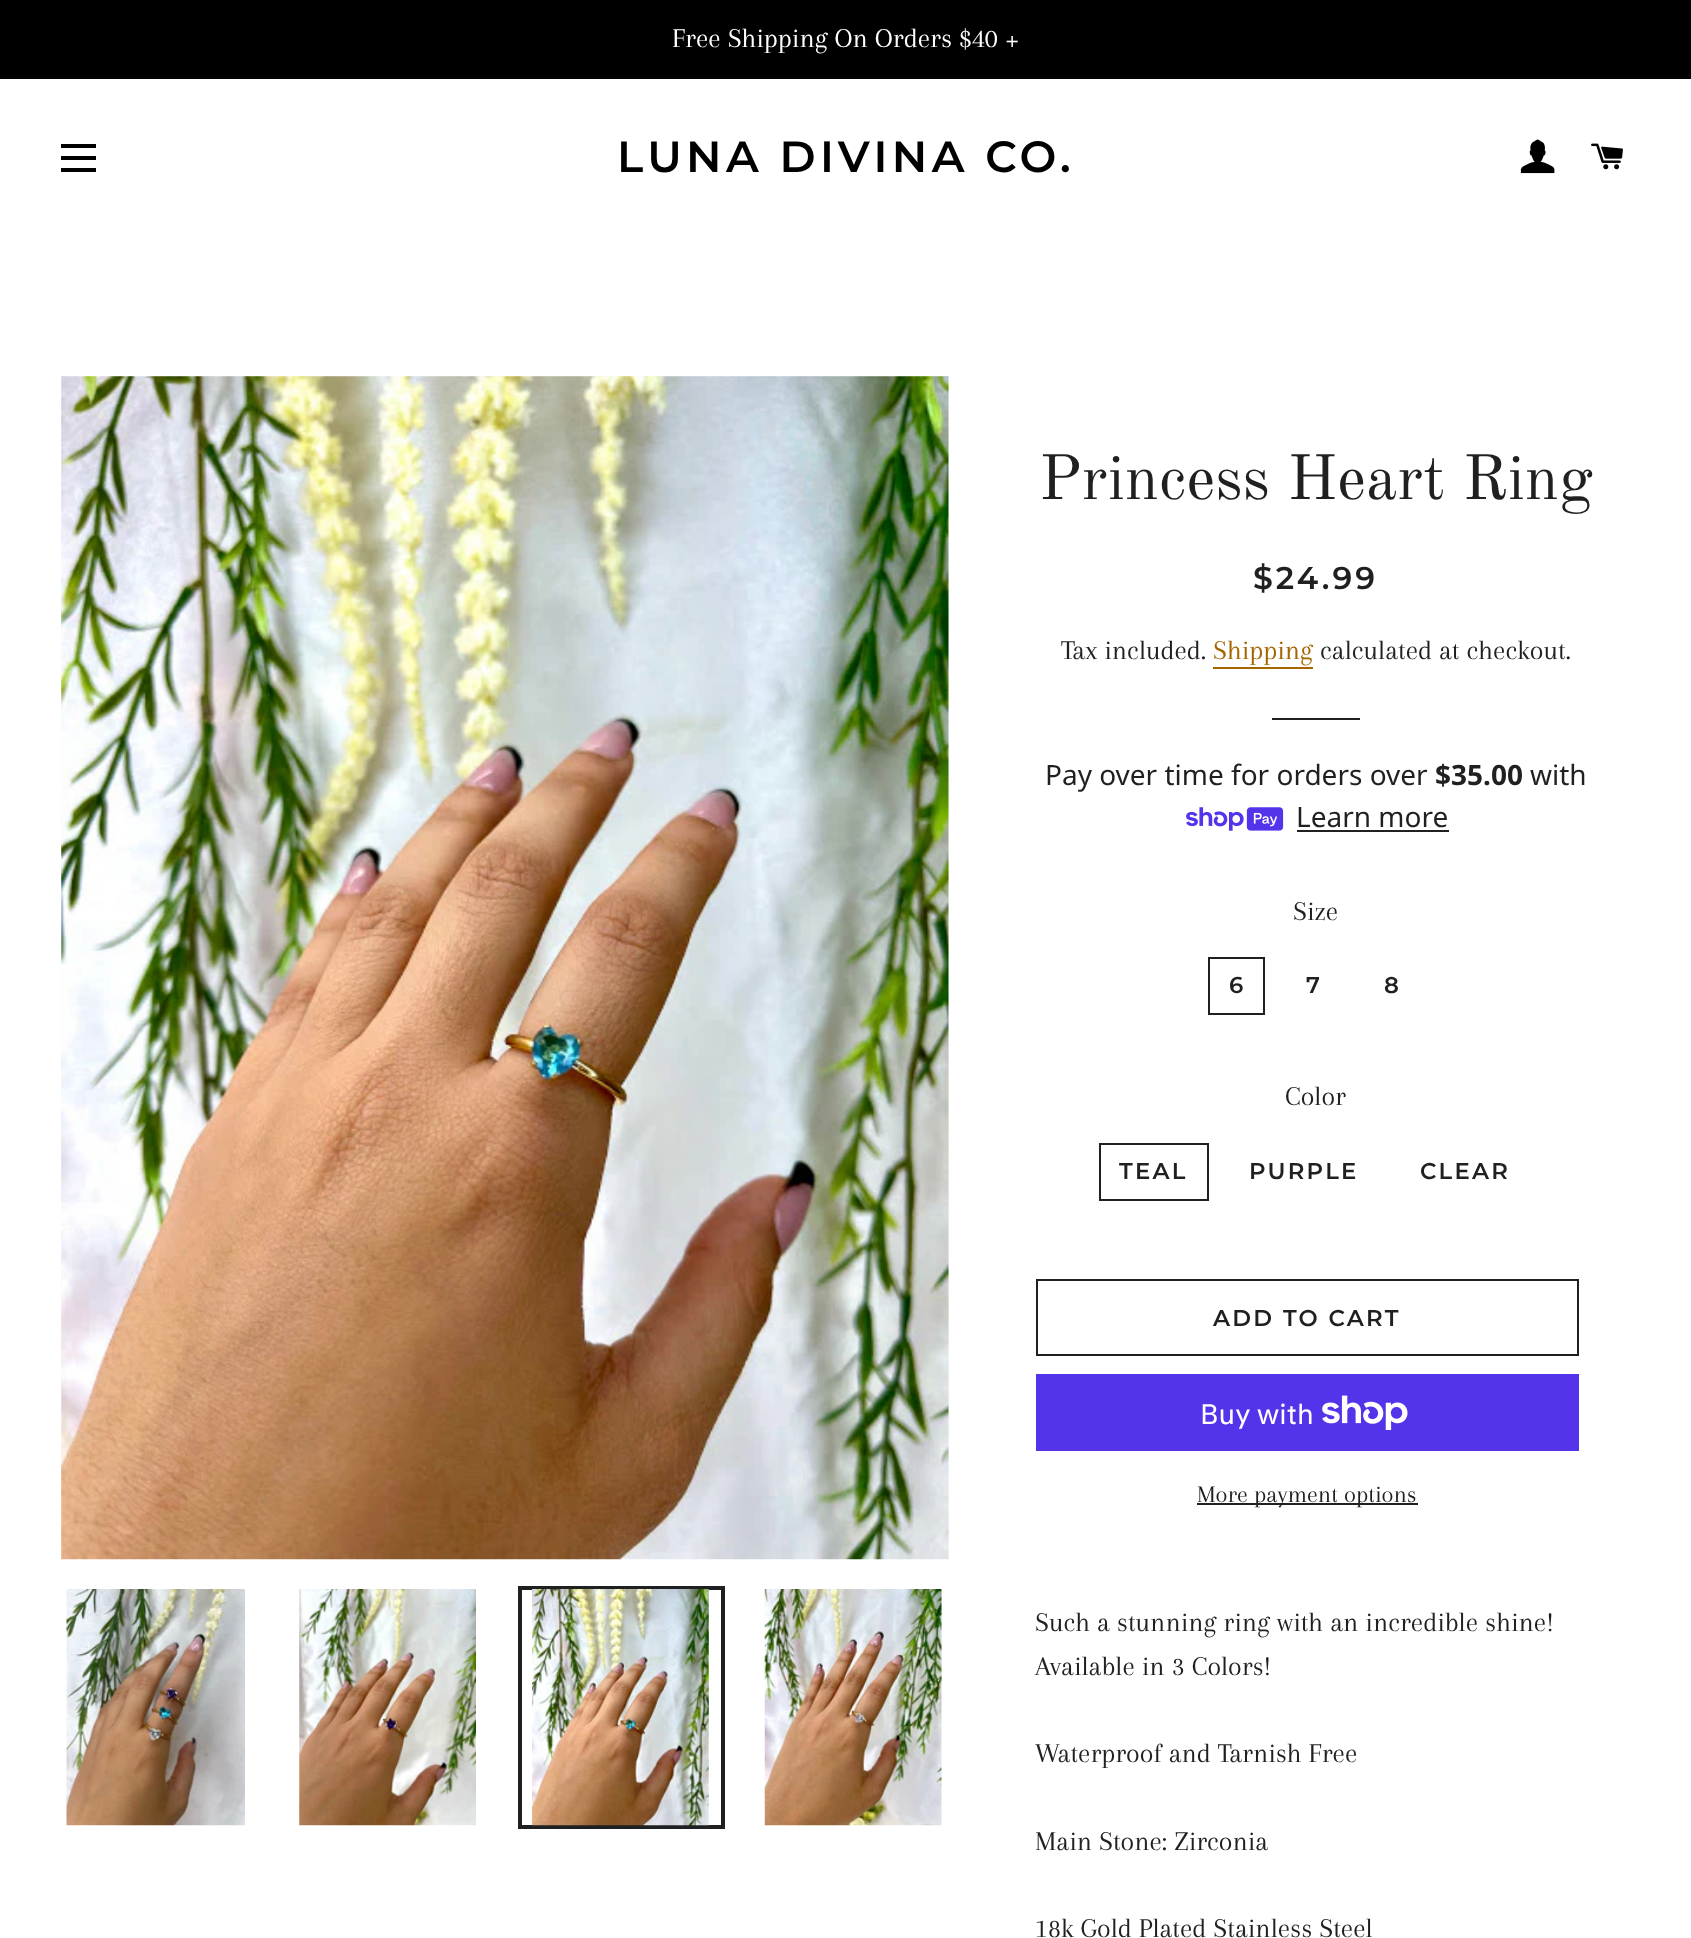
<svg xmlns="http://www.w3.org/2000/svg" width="1691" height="1938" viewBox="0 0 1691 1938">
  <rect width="100%" height="100%" fill="#ffffff"/>
  <rect x="0" y="0" width="1691" height="79" fill="#000000"/>
  <text x="672" y="47" font-family="Arapey" font-size="28" fill="#ffffff">Free Shipping On Orders $40 +</text>
  <rect x="61" y="144" width="35" height="4" fill="#000000"/>
  <rect x="61" y="156" width="35" height="4" fill="#000000"/>
  <rect x="61" y="168" width="35" height="4" fill="#000000"/>
  <text x="617" y="172" font-family="Montserrat" font-size="43.75" font-weight="600" letter-spacing="4.4" fill="#000000">LUNA DIVINA CO.</text>
  <image x="1520" y="139" width="35" height="35" href="img1.png"/>
  <image x="1591" y="143" width="32" height="27" href="img2.png"/>
  <rect x="61" y="376" width="888" height="1183" fill="#f6f6f6"/>
  <image x="61" y="376" width="888" height="1184" href="img3.png"/>
  <image x="66" y="1589" width="179" height="237" href="img4.png"/>
  <image x="299" y="1589" width="177" height="237" href="img5.png"/>
  <rect x="520" y="1588" width="203" height="239" fill="none" stroke="#1f2021" stroke-width="4"/>
  <image x="532" y="1589" width="177" height="237" href="img6.png"/>
  <image x="764" y="1589" width="178" height="237" href="img7.png"/>
  <text x="1039" y="499" font-family="Old Standard TT" font-size="63" fill="#1f2021">Princess Heart Ring</text>
  <text x="1253" y="589" font-family="Montserrat" font-size="31.5" font-weight="600" letter-spacing="3" fill="#1f2021">$24.99</text>
  <text x="1061" y="659" font-family="Arapey" font-size="28" fill="#1f2021">Tax included.</text>
  <text x="1213" y="659" font-family="Arapey" font-size="28" fill="#a56600">Shipping</text>
  <rect x="1213" y="667" width="100" height="2" fill="#a56600"/>
  <text x="1320" y="659" font-family="Arapey" font-size="28" fill="#1f2021">calculated at checkout.</text>
  <rect x="1272" y="718" width="88" height="2" fill="#1f2021"/>
  <text x="1045" y="785" font-family="Noto Sans" font-size="28" fill="#1f2021">Pay over time for orders over</text>
  <text x="1435" y="785" font-family="Noto Sans" font-size="28" font-weight="bold" fill="#1f2021">$35.00</text>
  <text x="1530" y="785" font-family="Noto Sans" font-size="28" fill="#1f2021">with</text>
  <image x="1186" y="807" width="98" height="24" href="img8.png"/>
  <text x="1296" y="827" font-family="Noto Sans" font-size="28" fill="#1f2021">Learn more</text>
  <rect x="1297" y="830" width="152" height="2" fill="#1f2021"/>
  <text x="1293" y="920" font-family="Arapey" font-size="28" fill="#1f2021">Size</text>
  <rect x="1209" y="958" width="55" height="56" fill="none" stroke="#1f2021" stroke-width="2"/>
  <text x="1229" y="993" font-family="Montserrat" font-size="22.75" font-weight="600" letter-spacing="2.25" fill="#1f2021">6</text>
  <text x="1306" y="993" font-family="Montserrat" font-size="22.75" font-weight="600" letter-spacing="2.25" fill="#1f2021">7</text>
  <text x="1384" y="993" font-family="Montserrat" font-size="22.75" font-weight="600" letter-spacing="2.25" fill="#1f2021">8</text>
  <text x="1285" y="1105" font-family="Arapey" font-size="28" fill="#1f2021">Color</text>
  <rect x="1100" y="1144" width="108" height="56" fill="none" stroke="#1f2021" stroke-width="2"/>
  <text x="1119" y="1179" font-family="Montserrat" font-size="22.75" font-weight="600" letter-spacing="2.25" fill="#1f2021">TEAL</text>
  <text x="1249" y="1179" font-family="Montserrat" font-size="22.75" font-weight="600" letter-spacing="2.25" fill="#1f2021">PURPLE</text>
  <text x="1420" y="1179" font-family="Montserrat" font-size="22.75" font-weight="600" letter-spacing="2.25" fill="#1f2021">CLEAR</text>
  <rect x="1037" y="1280" width="541" height="75" fill="none" stroke="#1f2021" stroke-width="2"/>
  <text x="1213" y="1326" font-family="Montserrat" font-size="22.75" font-weight="600" letter-spacing="2.25" fill="#1f2021">ADD TO CART</text>
  <rect x="1036" y="1374" width="543" height="77" fill="#5433eb"/>
  <text x="1200" y="1424" font-family="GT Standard" font-size="28" fill="#ffffff">Buy with</text>
  <image x="1322" y="1395" width="86" height="35" href="img9.png"/>
  <rect x="1197" y="1503" width="221" height="2" fill="#1f2021"/>
  <text x="1197" y="1502" font-family="Arapey" font-size="24.5" fill="#1f2021">More payment options</text>
  <text x="1035" y="1631" font-family="Arapey" font-size="28" fill="#1f2021">Such a stunning ring with an incredible shine!</text>
  <text x="1035" y="1675" font-family="Arapey" font-size="28" fill="#1f2021">Available in 3 Colors!</text>
  <text x="1035" y="1762" font-family="Arapey" font-size="28" fill="#1f2021">Waterproof and Tarnish Free</text>
  <text x="1035" y="1850" font-family="Arapey" font-size="28" fill="#1f2021">Main Stone: Zirconia</text>
  <text x="1035" y="1937" font-family="Arapey" font-size="28" fill="#1f2021">18k Gold Plated Stainless Steel</text>
</svg>
